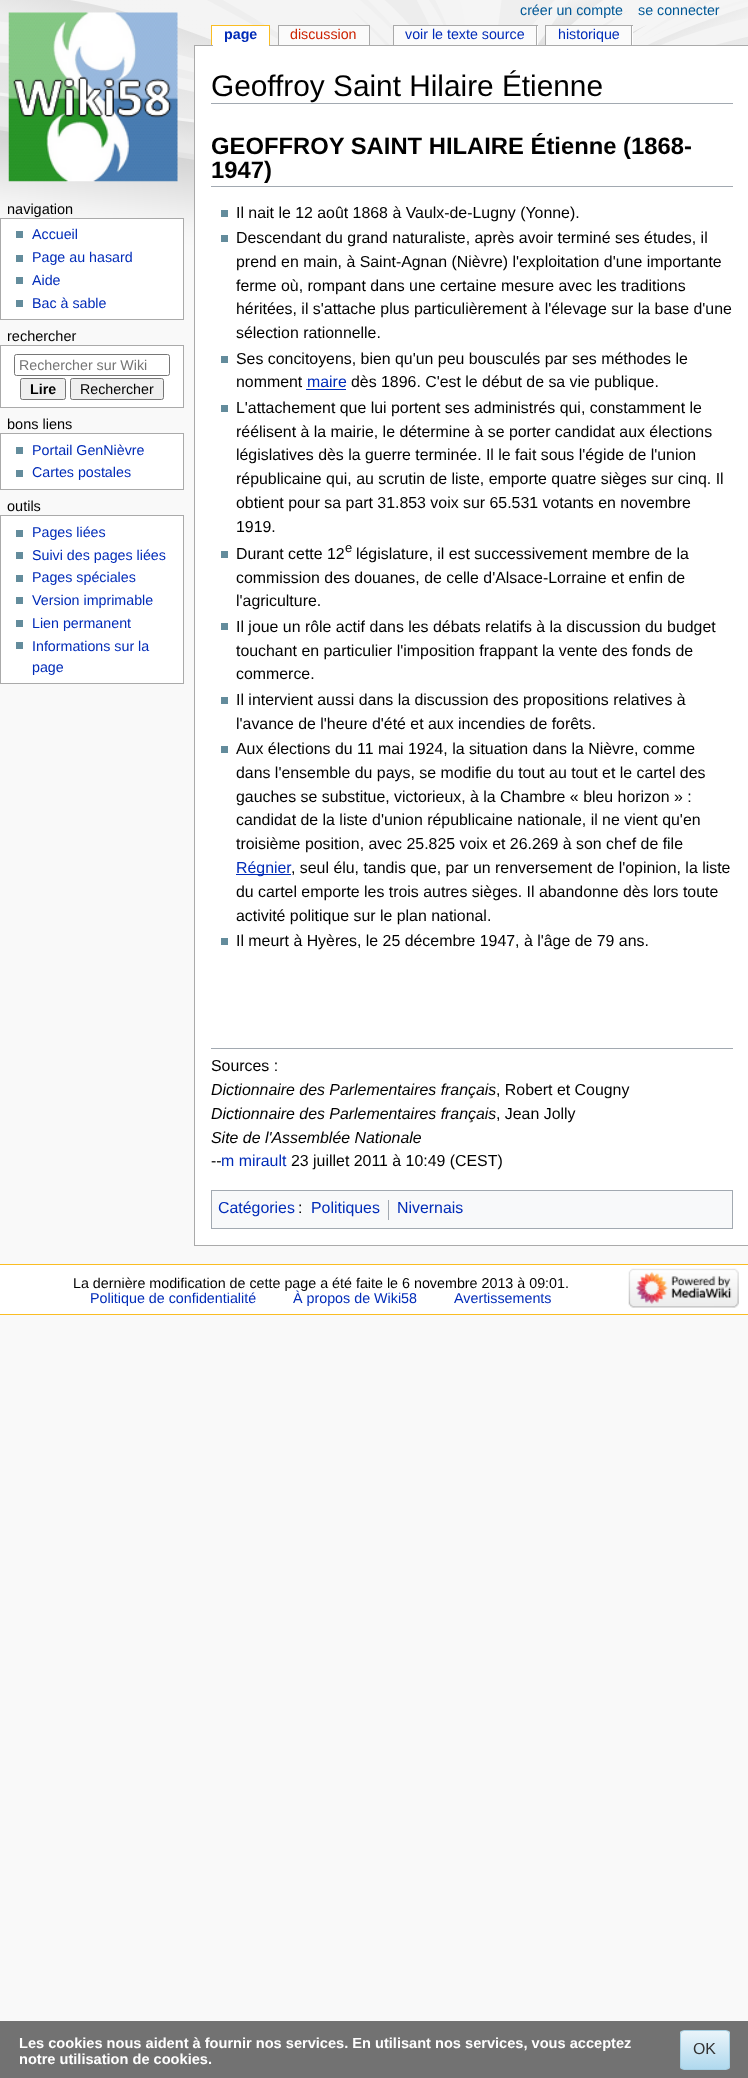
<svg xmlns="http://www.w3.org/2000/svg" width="748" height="2078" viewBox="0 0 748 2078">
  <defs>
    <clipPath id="clip1"><rect x="680" y="2030" width="50" height="40" rx="4"/></clipPath>
    <linearGradient id="g1" gradientUnits="userSpaceOnUse" x1="705" y1="2031" x2="705" y2="2069"><stop offset="0" stop-color="#eaf4fa"/><stop offset="1" stop-color="#b0d9ee"/></linearGradient>
  </defs>
  <rect width="100%" height="100%" fill="#f9f9f9"/>
  <image x="0" y="0" width="748" height="263" href="img1.png"/>
  <image x="8" y="12" width="170" height="170" href="img2.png"/>
  <text x="520" y="15" font-family="Liberation Sans" font-size="14.25" fill="#005896">créer un compte</text>
  <text x="638" y="15" font-family="Liberation Sans" font-size="14.25" fill="#005896">se connecter</text>
  <rect x="194" y="45" width="554" height="1" fill="#aaaaaa"/>
  <rect x="213" y="26" width="56" height="20" fill="#ffffff"/>
  <text x="224" y="39" font-family="Liberation Sans" font-size="14.25" font-weight="bold" fill="#002bb8">page</text>
  <rect x="212" y="26" width="1" height="19" fill="#ffffff"/>
  <rect x="211" y="25" width="59" height="1" fill="#fabd23"/>
  <rect x="269" y="25" width="1" height="20" fill="#fabd23"/>
  <rect x="211" y="25" width="1" height="20" fill="#fabd23"/>
  <rect x="279" y="26" width="90" height="19" fill="#fbfbfb"/>
  <text x="290" y="39" font-family="Liberation Sans" font-size="14.25" fill="#cc2200">discussion</text>
  <rect x="278" y="25" width="92" height="1" fill="#aaaaaa"/>
  <rect x="369" y="25" width="1" height="20" fill="#aaaaaa"/>
  <rect x="278" y="25" width="1" height="20" fill="#aaaaaa"/>
  <rect x="394" y="26" width="142" height="19" fill="#fbfbfb"/>
  <text x="405" y="39" font-family="Liberation Sans" font-size="14.25" fill="#002bb8">voir le texte source</text>
  <rect x="537" y="26" width="1" height="19" fill="#ffffff"/>
  <rect x="393" y="25" width="145" height="1" fill="#aaaaaa"/>
  <rect x="536" y="25" width="1" height="20" fill="#aaaaaa"/>
  <rect x="393" y="25" width="1" height="20" fill="#aaaaaa"/>
  <rect x="546" y="26" width="85" height="19" fill="#fbfbfb"/>
  <text x="558" y="39" font-family="Liberation Sans" font-size="14.25" fill="#002bb8">historique</text>
  <rect x="632" y="26" width="1" height="19" fill="#ffffff"/>
  <rect x="545" y="25" width="88" height="1" fill="#aaaaaa"/>
  <rect x="631" y="25" width="1" height="20" fill="#aaaaaa"/>
  <rect x="545" y="25" width="1" height="20" fill="#aaaaaa"/>
  <text x="7" y="214" font-family="Liberation Sans" font-size="14.5" fill="#000000">navigation</text>
  <rect x="0.5" y="218.5" width="183" height="101" fill="#ffffff" stroke="#aaaaaa"/>
  <rect x="16" y="231" width="7" height="7" fill="#638c9c"/>
  <text x="32" y="239" font-family="Liberation Sans" font-size="14.25" fill="#002bb8">Accueil</text>
  <rect x="16" y="255" width="7" height="7" fill="#638c9c"/>
  <text x="32" y="262" font-family="Liberation Sans" font-size="14.25" fill="#002bb8">Page au hasard</text>
  <rect x="16" y="277" width="7" height="7" fill="#638c9c"/>
  <text x="32" y="285" font-family="Liberation Sans" font-size="14.25" fill="#002bb8">Aide</text>
  <rect x="16" y="300" width="7" height="7" fill="#638c9c"/>
  <text x="32" y="308" font-family="Liberation Sans" font-size="14.25" fill="#002bb8">Bac à sable</text>
  <text x="7" y="341" font-family="Liberation Sans" font-size="14.5" fill="#000000">rechercher</text>
  <rect x="0.5" y="345.5" width="183" height="62" fill="#ffffff" stroke="#aaaaaa"/>
  <rect x="14.5" y="354.5" width="155" height="21" rx="2" fill="none" stroke="#767676"/>
  <text x="19" y="370" font-family="Liberation Sans" font-size="14.25" fill="#757575">Rechercher sur Wiki</text>
  <rect x="20.5" y="378.5" width="45" height="21" rx="2" fill="#efefef" stroke="#767676"/>
  <text x="30" y="394" font-family="Liberation Sans" font-size="14.25" font-weight="bold" fill="#000000">Lire</text>
  <rect x="70.5" y="378.5" width="93" height="21" rx="2" fill="#efefef" stroke="#767676"/>
  <text x="80" y="394" font-family="Liberation Sans" font-size="14.25" fill="#000000">Rechercher</text>
  <text x="7" y="429" font-family="Liberation Sans" font-size="14.5" fill="#000000">bons liens</text>
  <rect x="0.5" y="433.5" width="183" height="56" fill="#ffffff" stroke="#aaaaaa"/>
  <rect x="16" y="447" width="7" height="7" fill="#638c9c"/>
  <text x="32" y="455" font-family="Liberation Sans" font-size="14.25" fill="#002bb8">Portail GenNièvre</text>
  <rect x="16" y="470" width="7" height="7" fill="#638c9c"/>
  <text x="32" y="477" font-family="Liberation Sans" font-size="14.25" fill="#002bb8">Cartes postales</text>
  <text x="7" y="511" font-family="Liberation Sans" font-size="14.5" fill="#000000">outils</text>
  <rect x="0.5" y="515.5" width="183" height="168" fill="#ffffff" stroke="#aaaaaa"/>
  <rect x="16" y="530" width="7" height="7" fill="#638c9c"/>
  <text x="32" y="537" font-family="Liberation Sans" font-size="14.25" fill="#002bb8">Pages liées</text>
  <rect x="16" y="552" width="7" height="7" fill="#638c9c"/>
  <text x="32" y="560" font-family="Liberation Sans" font-size="14.25" fill="#002bb8">Suivi des pages liées</text>
  <rect x="16" y="575" width="7" height="7" fill="#638c9c"/>
  <text x="32" y="582" font-family="Liberation Sans" font-size="14.25" fill="#002bb8">Pages spéciales</text>
  <rect x="16" y="597" width="7" height="7" fill="#638c9c"/>
  <text x="32" y="605" font-family="Liberation Sans" font-size="14.25" fill="#002bb8">Version imprimable</text>
  <rect x="16" y="620" width="7" height="7" fill="#638c9c"/>
  <text x="32" y="628" font-family="Liberation Sans" font-size="14.25" fill="#002bb8">Lien permanent</text>
  <rect x="16" y="642" width="7" height="7" fill="#638c9c"/>
  <text x="32" y="651" font-family="Liberation Sans" font-size="14.25" fill="#002bb8">Informations sur la</text>
  <text x="32" y="672" font-family="Liberation Sans" font-size="14.25" fill="#002bb8">page</text>
  <rect x="195" y="46" width="553" height="1199" fill="#ffffff"/>
  <rect x="194" y="1245" width="554" height="1" fill="#aaaaaa"/>
  <rect x="194" y="45" width="1" height="1201" fill="#aaaaaa"/>
  <rect x="211" y="103" width="522" height="1" fill="#a2a9b1"/>
  <text x="211" y="96" font-family="Liberation Sans" font-size="29.8" fill="#000000">Geoffroy Saint Hilaire Étienne</text>
  <rect x="211" y="186" width="522" height="1" fill="#a2a9b1"/>
  <text x="211" y="154" font-family="Liberation Sans" font-size="23.8" font-weight="bold" fill="#000000">GEOFFROY SAINT HILAIRE Étienne (1868-</text>
  <text x="211" y="178" font-family="Liberation Sans" font-size="23.8" font-weight="bold" fill="#000000">1947)</text>
  <rect x="221" y="210" width="7" height="7" fill="#638c9c"/>
  <text x="236" y="218" font-family="Liberation Sans" font-size="15.9" fill="#000000">Il nait le 12 août 1868 à Vaulx-de-Lugny (Yonne).</text>
  <rect x="221" y="235" width="7" height="7" fill="#638c9c"/>
  <text x="236" y="243" font-family="Liberation Sans" font-size="15.9" fill="#000000">Descendant du grand naturaliste, après avoir terminé ses études, il</text>
  <text x="236" y="267" font-family="Liberation Sans" font-size="15.9" fill="#000000">prend en main, à Saint-Agnan (Nièvre) l'exploitation d'une importante</text>
  <text x="236" y="291" font-family="Liberation Sans" font-size="15.9" fill="#000000">ferme où, rompant dans une certaine mesure avec les traditions</text>
  <text x="236" y="314" font-family="Liberation Sans" font-size="15.9" fill="#000000">héritées, il s'attache plus particulièrement à l'élevage sur la base d'une</text>
  <text x="236" y="338" font-family="Liberation Sans" font-size="15.9" fill="#000000">sélection rationnelle.</text>
  <rect x="221" y="356" width="7" height="7" fill="#638c9c"/>
  <text x="236" y="364" font-family="Liberation Sans" font-size="15.9" fill="#000000">Ses concitoyens, bien qu'un peu bousculés par ses méthodes le</text>
  <text x="236" y="387" font-family="Liberation Sans" font-size="15.9" fill="#000000">nomment</text>
  <text x="307" y="387" font-family="Liberation Sans" font-size="15.9" fill="#002bb8">maire</text>
  <rect x="306" y="389" width="40" height="1" fill="#002bb8"/>
  <text x="351" y="387" font-family="Liberation Sans" font-size="15.9" fill="#000000">dès 1896. C'est le début de sa vie publique.</text>
  <rect x="221" y="405" width="7" height="7" fill="#638c9c"/>
  <text x="236" y="413" font-family="Liberation Sans" font-size="15.9" fill="#000000">L'attachement que lui portent ses administrés qui, constamment le</text>
  <text x="236" y="437" font-family="Liberation Sans" font-size="15.9" fill="#000000">réélisent à la mairie, le détermine à se porter candidat aux élections</text>
  <text x="236" y="460" font-family="Liberation Sans" font-size="15.9" fill="#000000">législatives dès la guerre terminée. Il le fait sous l'égide de l'union</text>
  <text x="236" y="484" font-family="Liberation Sans" font-size="15.9" fill="#000000">républicaine qui, au scrutin de liste, emporte quatre sièges sur cinq. Il</text>
  <text x="236" y="508" font-family="Liberation Sans" font-size="15.9" fill="#000000">obtient pour sa part 31.853 voix sur 65.531 votants en novembre</text>
  <text x="236" y="532" font-family="Liberation Sans" font-size="15.9" fill="#000000">1919.</text>
  <rect x="221" y="551" width="7" height="7" fill="#638c9c"/>
  <text x="236" y="559" font-family="Liberation Sans" font-size="15.9" fill="#000000">Durant cette 12</text>
  <text x="345" y="552" font-family="Liberation Sans" font-size="13" fill="#000000">e</text>
  <text x="356" y="559" font-family="Liberation Sans" font-size="15.9" fill="#000000">législature, il est successivement membre de la</text>
  <text x="236" y="583" font-family="Liberation Sans" font-size="15.9" fill="#000000">commission des douanes, de celle d'Alsace-Lorraine et enfin de</text>
  <text x="236" y="606" font-family="Liberation Sans" font-size="15.9" fill="#000000">l'agriculture.</text>
  <rect x="221" y="623" width="7" height="7" fill="#638c9c"/>
  <text x="236" y="632" font-family="Liberation Sans" font-size="15.9" fill="#000000">Il joue un rôle actif dans les débats relatifs à la discussion du budget</text>
  <text x="236" y="656" font-family="Liberation Sans" font-size="15.9" fill="#000000">touchant en particulier l'imposition frappant la vente des fonds de</text>
  <text x="236" y="679" font-family="Liberation Sans" font-size="15.9" fill="#000000">commerce.</text>
  <rect x="221" y="697" width="7" height="7" fill="#638c9c"/>
  <text x="236" y="705" font-family="Liberation Sans" font-size="15.9" fill="#000000">Il intervient aussi dans la discussion des propositions relatives à</text>
  <text x="236" y="729" font-family="Liberation Sans" font-size="15.9" fill="#000000">l'avance de l'heure d'été et aux incendies de forêts.</text>
  <rect x="221" y="746" width="7" height="7" fill="#638c9c"/>
  <text x="236" y="754" font-family="Liberation Sans" font-size="15.9" fill="#000000">Aux élections du 11 mai 1924, la situation dans la Nièvre, comme</text>
  <text x="236" y="778" font-family="Liberation Sans" font-size="15.9" fill="#000000">dans l'ensemble du pays, se modifie du tout au tout et le cartel des</text>
  <text x="236" y="802" font-family="Liberation Sans" font-size="15.9" fill="#000000">gauches se substitue, victorieux, à la Chambre « bleu horizon » :</text>
  <text x="236" y="825" font-family="Liberation Sans" font-size="15.9" fill="#000000">candidat de la liste d'union républicaine nationale, il ne vient qu'en</text>
  <text x="236" y="849" font-family="Liberation Sans" font-size="15.9" fill="#000000">troisième position, avec 25.825 voix et 26.269 à son chef de file</text>
  <rect x="236" y="874" width="55" height="1" fill="#002bb8"/>
  <text x="236" y="873" font-family="Liberation Sans" font-size="15.9" fill="#002bb8">Régnier</text>
  <text x="291" y="873" font-family="Liberation Sans" font-size="15.9" fill="#000000">, seul élu, tandis que, par un renversement de l'opinion, la liste</text>
  <text x="236" y="897" font-family="Liberation Sans" font-size="15.9" fill="#000000">du cartel emporte les trois autres sièges. Il abandonne dès lors toute</text>
  <text x="236" y="921" font-family="Liberation Sans" font-size="15.9" fill="#000000">activité politique sur le plan national.</text>
  <rect x="221" y="938" width="7" height="7" fill="#638c9c"/>
  <text x="236" y="946" font-family="Liberation Sans" font-size="15.9" fill="#000000">Il meurt à Hyères, le 25 décembre 1947, à l'âge de 79 ans.</text>
  <rect x="211" y="1048" width="522" height="1" fill="#a2a9b1"/>
  <text x="211" y="1071" font-family="Liberation Sans" font-size="15.9" fill="#000000">Sources :</text>
  <text x="211" y="1095" font-family="Liberation Sans" font-size="15.9" font-style="italic" fill="#000000">Dictionnaire des Parlementaires français</text>
  <text x="496" y="1095" font-family="Liberation Sans" font-size="15.9" fill="#000000">, Robert et Cougny</text>
  <text x="211" y="1119" font-family="Liberation Sans" font-size="15.9" font-style="italic" fill="#000000">Dictionnaire des Parlementaires français</text>
  <text x="496" y="1119" font-family="Liberation Sans" font-size="15.9" fill="#000000">, Jean Jolly</text>
  <text x="211" y="1143" font-family="Liberation Sans" font-size="15.9" font-style="italic" fill="#000000">Site de l'Assemblée Nationale</text>
  <text x="211" y="1166" font-family="Liberation Sans" font-size="15.9" fill="#000000">--</text>
  <text x="221" y="1166" font-family="Liberation Sans" font-size="15.9" fill="#002bb8">m mirault</text>
  <text x="291" y="1166" font-family="Liberation Sans" font-size="15.9" fill="#000000">23 juillet 2011 à 10:49 (CEST)</text>
  <rect x="211.5" y="1190.5" width="521" height="38" fill="#f8f9fa" stroke="#a2a9b1"/>
  <text x="218" y="1213" font-family="Liberation Sans" font-size="15.9" fill="#002bb8">Catégories</text>
  <text x="298" y="1213" font-family="Liberation Sans" font-size="15.9" fill="#000000">:</text>
  <text x="311" y="1213" font-family="Liberation Sans" font-size="15.9" fill="#002bb8">Politiques</text>
  <rect x="388" y="1200" width="1" height="20" fill="#a2a9b1"/>
  <text x="397" y="1213" font-family="Liberation Sans" font-size="15.9" fill="#002bb8">Nivernais</text>
  <rect x="0" y="2021" width="748" height="57" fill="#727272"/>
  <text x="19" y="2048" font-family="Liberation Sans" font-size="14.6" font-weight="bold" fill="#ffffff">Les cookies nous aident à fournir nos services. En utilisant nos services, vous acceptez</text>
  <text x="19" y="2064" font-family="Liberation Sans" font-size="14.6" font-weight="bold" fill="#ffffff">notre utilisation de cookies.</text>
  <g clip-path="url(#clip1)">
    <rect x="680" y="2031" width="50" height="38" fill="url(#g1)"/>
  </g>
  <rect x="680.5" y="2030.5" width="49" height="39" rx="3.5" fill="none" stroke="#a6cee1"/>
  <text x="693" y="2054" font-family="Liberation Sans" font-size="15.9" fill="#333333">OK</text>
  <rect x="0" y="1265" width="748" height="49" fill="#ffffff"/>
  <rect x="0" y="1264" width="748" height="1" fill="#fabd23"/>
  <rect x="0" y="1314" width="748" height="1" fill="#fabd23"/>
  <text x="73" y="1288" font-family="Liberation Sans" font-size="14.3" fill="#000000">La dernière modification de cette page a été faite le 6 novembre 2013 à 09:01.</text>
  <text x="90" y="1303" font-family="Liberation Sans" font-size="14.3" fill="#002bb8">Politique de confidentialité</text>
  <text x="293" y="1303" font-family="Liberation Sans" font-size="14.3" fill="#002bb8">À propos de Wiki58</text>
  <text x="454" y="1303" font-family="Liberation Sans" font-size="14.3" fill="#002bb8">Avertissements</text>
  <image x="628" y="1268" width="111" height="40" href="img3.png"/>
</svg>
